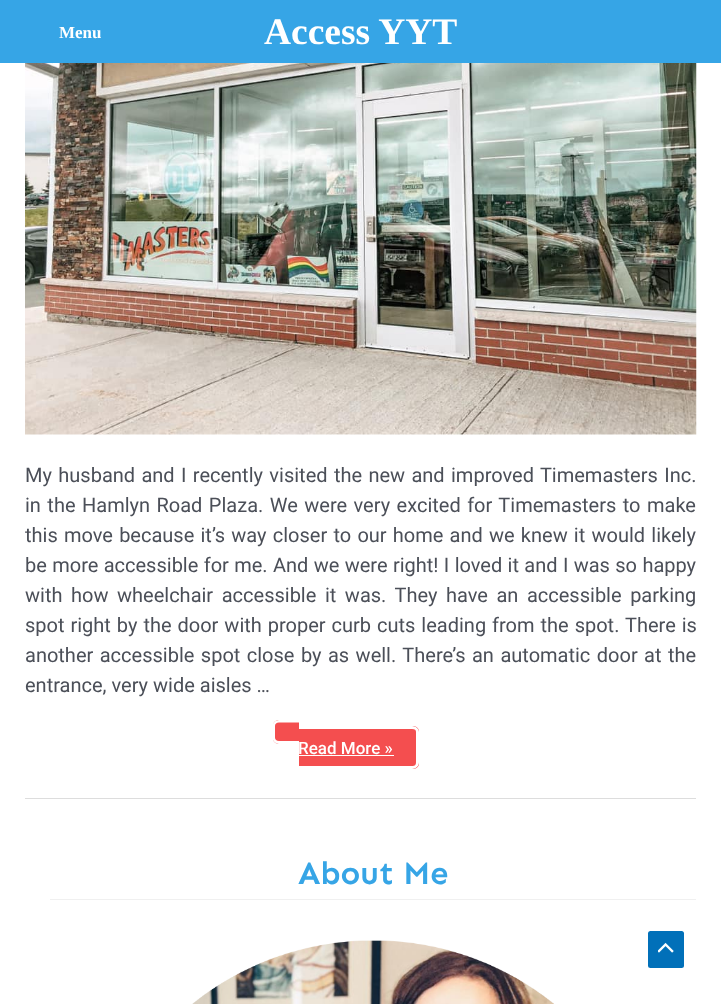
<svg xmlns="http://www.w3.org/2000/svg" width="721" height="1004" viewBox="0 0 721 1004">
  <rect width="100%" height="100%" fill="#ffffff"/>
  <rect x="0" y="0" width="721" height="63" fill="#36a5e6"/>
  <text x="59" y="38" font-family="Liberation Serif" font-size="17" font-weight="bold" fill="#ffffff">Menu</text>
  <text x="264" y="44" font-family="Liberation Serif" font-size="37.5" font-weight="bold" fill="#ffffff">Access YYT</text>
  <rect x="25" y="798" width="671" height="1" fill="#dddddd"/>
  <image x="25" y="63" width="672" height="372" href="img1.png"/>
  <text x="25" y="482" word-spacing="1.4" font-family="Roboto" font-size="20" fill="#4b4f58">My husband and I recently visited the new and improved Timemasters Inc.</text>
  <text x="25" y="512" word-spacing="1.5" font-family="Roboto" font-size="20" fill="#4b4f58">in the Hamlyn Road Plaza. We were very excited for Timemasters to make</text>
  <text x="25" y="542" word-spacing="1.25" font-family="Roboto" font-size="20" fill="#4b4f58">this move because it’s way closer to our home and we knew it would likely</text>
  <text x="25" y="572" word-spacing="0.4" font-family="Roboto" font-size="20" fill="#4b4f58">be more accessible for me. And we were right! I loved it and I was so happy</text>
  <text x="25" y="602" word-spacing="3.6" font-family="Roboto" font-size="20" fill="#4b4f58">with how wheelchair accessible it was. They have an accessible parking</text>
  <text x="25" y="632" word-spacing="1" font-family="Roboto" font-size="20" fill="#4b4f58">spot right by the door with proper curb cuts leading from the spot. There is</text>
  <text x="25" y="662" word-spacing="1.5" font-family="Roboto" font-size="20" fill="#4b4f58">another accessible spot close by as well. There’s an automatic door at the</text>
  <text x="25" y="692" font-family="Roboto" font-size="20" fill="#4b4f58">entrance, very wide aisles …</text>
  <path d="M299 726H413C416.5 726 419 728.5 419 732V763C419 766.5 416.5 769 413 769H299Z" fill="#f44e4f"/>
  <path d="M299 726H412C416 726 419 729 419 732V762C419 766 416 769 412 769H299ZM299 729H412C415 729 416 730 416 732V762C416 765 415 766 412 766H299Z" fill="#ffffff" fill-rule="evenodd"/>
  <text x="298" y="754" font-family="Roboto" font-size="17" font-weight="500" fill="#ffffff">Read More »</text>
  <path d="M279 720H299V744H279C275.5 744 273 741.5 273 738V726C273 722.5 275.5 720 279 720Z" fill="#f44e4f"/>
  <path d="M279 720H299V744H279C275.5 744 272.5 741 272.5 737.5V726C272.5 723 275.5 720 279 720ZM279 722.5H299V741H279C276.5 741 275 739.5 275 737.5V726C275 724 276.5 722.5 279 722.5Z" fill="#ffffff" fill-rule="evenodd"/>
  <rect x="299" y="755" width="95" height="1" fill="#ffffff"/>
  <rect x="50" y="899" width="646" height="1" fill="#f0f0f0"/>
  <text x="298" y="884" font-family="Sen" font-size="32.5" font-weight="600" fill="#36a5e6">About Me</text>
  <image x="192" y="940" width="362" height="64" href="img2.png"/>
  <rect x="648" y="931" width="36" height="37" rx="2.5" fill="#0170b9"/>
  <image x="658" y="942" width="16" height="11" href="img3.png"/>
</svg>
